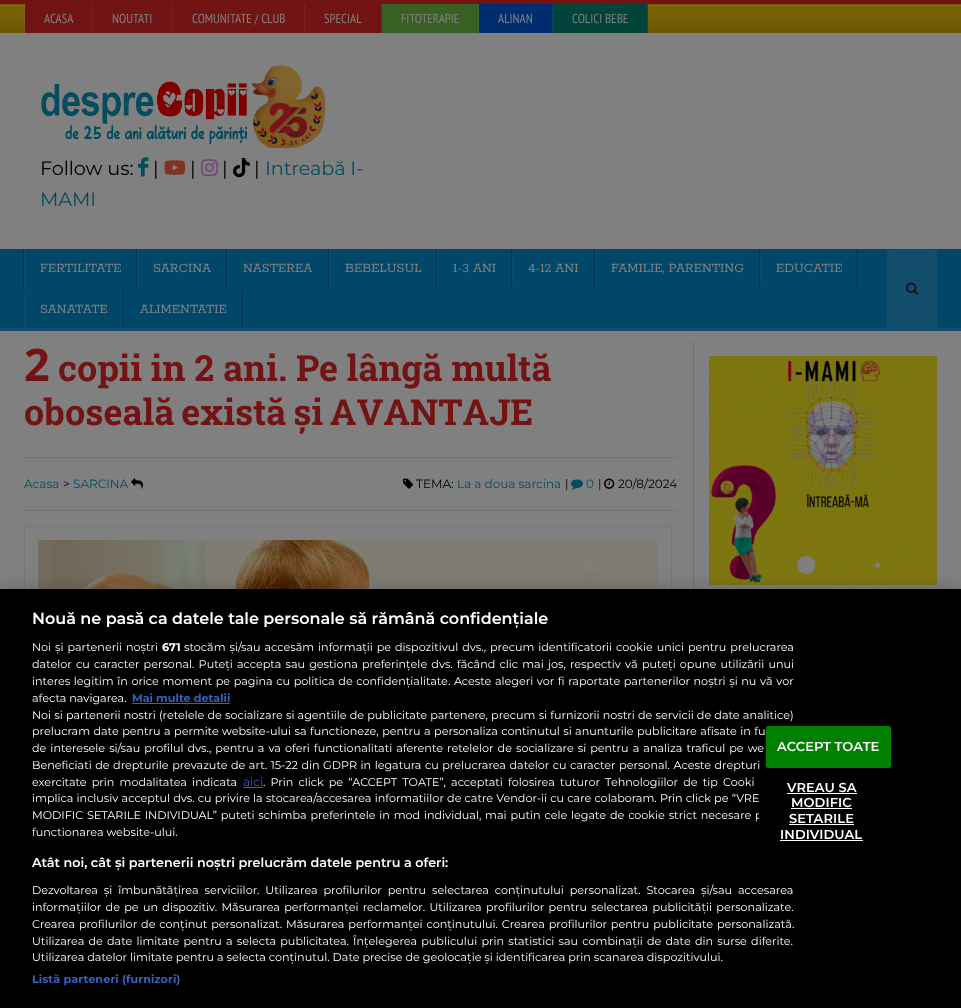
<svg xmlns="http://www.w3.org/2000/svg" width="961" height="1008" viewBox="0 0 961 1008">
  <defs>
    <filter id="blur1" x="-50%" y="-200%" width="200%" height="500%"><feGaussianBlur stdDeviation="9"/></filter>
  </defs>
  <rect width="100%" height="100%" fill="#808080"/>
  <image x="0" y="4" width="961" height="29" href="img1.png"/>
  <rect x="0" y="0" width="961" height="4" fill="#721413"/>
  <rect x="24" y="4" width="1" height="29" fill="#808080" fill-opacity="0.15"/>
  <rect x="25" y="4" width="67" height="29" fill="#721413"/>
  <rect x="92" y="4" width="1" height="29" fill="#742424"/>
  <text x="44" y="23" font-family="PT Sans Narrow" font-size="13" fill="#808080">ACASA</text>
  <rect x="93" y="4" width="79" height="29" fill="#721413"/>
  <rect x="172" y="4" width="1" height="29" fill="#742424"/>
  <text x="112" y="23" font-family="PT Sans Narrow" font-size="13" fill="#808080">NOUTATI</text>
  <rect x="173" y="4" width="131" height="29" fill="#721413"/>
  <rect x="304" y="4" width="1" height="29" fill="#742424"/>
  <text x="192" y="23" font-family="PT Sans Narrow" font-size="13" fill="#808080">COMUNITATE / CLUB</text>
  <rect x="305" y="4" width="76" height="29" fill="#721413"/>
  <rect x="381" y="4" width="1" height="29" fill="#742424"/>
  <text x="324" y="23" font-family="PT Sans Narrow" font-size="13" fill="#808080">SPECIAL</text>
  <rect x="382" y="4" width="96" height="29" fill="#396023"/>
  <rect x="478" y="4" width="1" height="29" fill="#446531"/>
  <text x="401" y="23" font-family="PT Sans Narrow" font-size="13" fill="#808080">FITOTERAPIE</text>
  <rect x="479" y="4" width="73" height="29" fill="#002d6f"/>
  <rect x="552" y="4" width="1" height="29" fill="#133a71"/>
  <text x="498" y="23" font-family="PT Sans Narrow" font-size="13" fill="#808080">ALINAN</text>
  <rect x="553" y="4" width="94" height="29" fill="#00433b"/>
  <rect x="647" y="4" width="1" height="29" fill="#134c46"/>
  <text x="572" y="23" font-family="PT Sans Narrow" font-size="13" fill="#808080">COLICI BEBE</text>
  <image x="41" y="65" width="285" height="83" href="img2.png"/>
  <text x="40" y="175" font-family="Montserrat" font-size="19.25" letter-spacing="-0.1" fill="#000000">Follow us:</text>
  <image x="138" y="157" width="11" height="20" href="img3.png"/>
  <text x="153" y="175" font-family="Montserrat" font-size="19.25" letter-spacing="-0.1" fill="#000000">|</text>
  <image x="164" y="160" width="22" height="15" href="img4.png"/>
  <text x="190" y="175" font-family="Montserrat" font-size="19.25" letter-spacing="-0.1" fill="#000000">|</text>
  <image x="201" y="159" width="17" height="17" href="img5.png"/>
  <text x="222" y="175" font-family="Montserrat" font-size="19.25" letter-spacing="-0.1" fill="#000000">|</text>
  <image x="233" y="158" width="17" height="20" href="img6.png"/>
  <text x="254" y="175" font-family="Montserrat" font-size="19.25" letter-spacing="-0.1" fill="#000000">|</text>
  <text x="265" y="175" font-family="Montserrat" font-size="19.25" letter-spacing="-0.1" fill="#034c5d">Intreabă I-</text>
  <text x="40" y="206" font-family="Montserrat" font-size="19.25" letter-spacing="-0.1" fill="#034c5d">MAMI</text>
  <rect x="0" y="249" width="961" height="79" fill="#004769"/>
  <rect x="0" y="328" width="961" height="3" fill="#134f6d"/>
  <rect x="23" y="249" width="1" height="38" fill="#00354f"/>
  <rect x="136" y="249" width="1" height="38" fill="#00354f"/>
  <rect x="24" y="249" width="1" height="38" fill="#0d4c6c"/>
  <text x="40" y="272" font-family="Rokkitt" font-size="14" fill="#808080">FERTILITATE</text>
  <rect x="226" y="249" width="1" height="38" fill="#00354f"/>
  <rect x="137" y="249" width="1" height="38" fill="#0a4b6b"/>
  <text x="153" y="272" font-family="Rokkitt" font-size="14" fill="#808080">SARCINA</text>
  <rect x="328" y="249" width="1" height="38" fill="#00354f"/>
  <rect x="227" y="249" width="1" height="38" fill="#0a4b6b"/>
  <text x="243" y="272" font-family="Rokkitt" font-size="14" fill="#808080">NASTEREA</text>
  <rect x="436" y="249" width="1" height="38" fill="#00354f"/>
  <rect x="329" y="249" width="1" height="38" fill="#0a4b6b"/>
  <text x="345" y="272" font-family="Rokkitt" font-size="14" fill="#808080">BEBELUSUL</text>
  <rect x="511" y="249" width="1" height="38" fill="#00354f"/>
  <rect x="437" y="249" width="1" height="38" fill="#0a4b6b"/>
  <text x="453" y="272" font-family="Rokkitt" font-size="14" fill="#808080">1-3 ANI</text>
  <rect x="594" y="249" width="1" height="38" fill="#00354f"/>
  <rect x="512" y="249" width="1" height="38" fill="#0a4b6b"/>
  <text x="528" y="272" font-family="Rokkitt" font-size="14" fill="#808080">4-12 ANI</text>
  <rect x="759" y="249" width="1" height="38" fill="#00354f"/>
  <rect x="595" y="249" width="1" height="38" fill="#0a4b6b"/>
  <text x="611" y="272" font-family="Rokkitt" font-size="14" fill="#808080">FAMILIE, PARENTING</text>
  <rect x="857" y="249" width="1" height="38" fill="#00354f"/>
  <rect x="760" y="249" width="1" height="38" fill="#0a4b6b"/>
  <text x="776" y="272" font-family="Rokkitt" font-size="14" fill="#808080">EDUCATIE</text>
  <rect x="123" y="290" width="1" height="38" fill="#00354f"/>
  <rect x="24" y="290" width="1" height="38" fill="#0a4b6b"/>
  <text x="40" y="313" font-family="Rokkitt" font-size="14" fill="#808080">SANATATE</text>
  <rect x="243" y="290" width="1" height="38" fill="#0a4b6b"/>
  <rect x="242" y="290" width="1" height="38" fill="#00354f"/>
  <rect x="124" y="290" width="1" height="38" fill="#0a4b6b"/>
  <text x="140" y="313" font-family="Rokkitt" font-size="14" fill="#808080">ALIMENTATIE</text>
  <rect x="887" y="249" width="50" height="79" fill="#134f6d"/>
  <path d="M889 251H935C936 251 937 252 937 253C937 247 934 249 927 249H897C890 249 887 247 887 253C887 252 888 251 889 251Z" fill="#134d69"/>
  <image x="906" y="282" width="13" height="13" href="img7.png"/>
  <text x="24" y="381" font-family="Noto Sans" font-size="45" font-weight="bold" fill="#721413">2</text>
  <text x="58" y="381" font-family="Roboto Slab" font-size="36" font-weight="bold" fill="#721413">copii in 2 ani. Pe lângă multă</text>
  <text x="24" y="425" word-spacing="-2" font-family="Roboto Slab" font-size="36" font-weight="bold" fill="#721413">oboseală există și AVANTAJE</text>
  <path d="M24 457.5H677" fill="none" stroke="#666666" stroke-dasharray="1 1"/>
  <path d="M24 510.5H677" fill="none" stroke="#666666" stroke-dasharray="1 1"/>
  <text x="24" y="488" font-family="Montserrat" font-size="12" fill="#034c5d">Acasa</text>
  <text x="63" y="488" font-family="Montserrat" font-size="12" fill="#000000">&gt;</text>
  <text x="73" y="488" font-family="Montserrat" font-size="12" fill="#034c5d">SARCINA</text>
  <image x="131" y="478" width="12" height="11" href="img8.png"/>
  <image x="403" y="478" width="11" height="11" href="img9.png"/>
  <text x="416" y="488" font-family="Montserrat" font-size="12" fill="#000000">TEMA:</text>
  <text x="457" y="488" font-family="Montserrat" font-size="12" fill="#034c5d">La a doua sarcina</text>
  <text x="565" y="488" font-family="Montserrat" font-size="12" fill="#000000">|</text>
  <image x="571" y="479" width="12" height="11" href="img10.png"/>
  <text x="586" y="488" font-family="Montserrat" font-size="12" fill="#034c5d">0</text>
  <text x="598" y="488" font-family="Montserrat" font-size="12" fill="#000000">|</text>
  <image x="604" y="478" width="11" height="11" href="img11.png"/>
  <text x="618" y="488" font-family="Montserrat" font-size="12" fill="#000000">20/8/2024</text>
  <rect x="24.5" y="526.5" width="647" height="387" fill="none" stroke="#777777"/>
  <image x="38" y="540" width="620" height="49" href="img12.png"/>
  <rect x="693" y="341" width="1" height="248" fill="#6d6d6d"/>
  <image x="709" y="356" width="228" height="229" href="img13.png"/>
  <rect x="0" y="589" width="961" height="419" fill="#000000" fill-opacity="0.2" filter="url(#blur1)"/>
  <rect x="0" y="589" width="961" height="419" fill="#000000"/>
  <text x="32" y="624" font-family="Montserrat" font-size="16" font-weight="600" fill="#ffffff">Nouă ne pasă ca datele tale personale să rămână confidențiale</text>
  <text x="32" y="651" word-spacing="1" font-family="Montserrat" font-size="11.2" fill="#ffffff">Noi și partenerii noștri</text>
  <text x="162" y="651" font-family="Montserrat" font-size="11.2" font-weight="bold" fill="#ffffff">671</text>
  <text x="184" y="651" word-spacing="1" font-family="Montserrat" font-size="11.2" fill="#ffffff">stocăm și/sau accesăm informații pe dispozitivul dvs., precum identificatorii cookie unici pentru prelucrarea</text>
  <text x="32" y="668" word-spacing="1.25" font-family="Montserrat" font-size="11.2" fill="#ffffff">datelor cu caracter personal. Puteți accepta sau gestiona preferințele dvs. făcând clic mai jos, respectiv vă puteți opune utilizării unui</text>
  <text x="32" y="685" word-spacing="0.7" font-family="Montserrat" font-size="11.2" fill="#ffffff">interes legitim în orice moment pe pagina cu politica de confidențialitate. Aceste alegeri vor fi raportate partenerilor noștri și nu vă vor</text>
  <text x="32" y="702" font-family="Montserrat" font-size="11.2" fill="#ffffff">afecta navigarea.</text>
  <text x="132" y="702" font-family="Montserrat" font-size="11.2" font-weight="bold" fill="#3860be">Mai multe detalii</text>
  <rect x="132" y="703" width="98" height="1" fill="#3860be"/>
  <text x="32" y="719" word-spacing="0.25" font-family="Montserrat" font-size="11.2" fill="#ffffff">Noi si partenerii nostri (retelele de socializare si agentiile de publicitate partenere, precum si furnizorii nostri de servicii de date analitice)</text>
  <text x="32" y="735" word-spacing="0.5" font-family="Montserrat" font-size="11.2" fill="#ffffff">prelucram date pentru a permite website-ului sa functioneze, pentru a personaliza continutul si anunturile publicitare afisate in fu</text>
  <text x="32" y="752" word-spacing="1.1" font-family="Montserrat" font-size="11.2" fill="#ffffff">de interesele si/sau profilul dvs., pentru a va oferi functionalitati aferente retelelor de socializare si pentru a analiza traficul pe we</text>
  <text x="32" y="769" word-spacing="0.6" font-family="Montserrat" font-size="11.2" fill="#ffffff">Beneficiati de drepturile prevazute de art. 15-22 din GDPR in legatura cu prelucrarea datelor cu caracter personal. Aceste drepturi</text>
  <text x="32" y="786" word-spacing="2.25" font-family="Montserrat" font-size="11.2" fill="#ffffff">exercitate prin modalitatea indicata</text>
  <text x="243" y="786" font-family="Montserrat" font-size="12" fill="#3860be">aici</text>
  <rect x="243" y="787" width="20" height="1" fill="#3860be"/>
  <text x="263" y="786" word-spacing="2.25" font-family="Montserrat" font-size="11.2" fill="#ffffff">. Prin click pe “ACCEPT TOATE”, acceptati folosirea tuturor Tehnologiilor de tip Cooki</text>
  <text x="32" y="802" word-spacing="0.25" font-family="Montserrat" font-size="11.2" fill="#ffffff">implica inclusiv acceptul dvs. cu privire la stocarea/accesarea informatiilor de catre Vendor-ii cu care colaboram. Prin click pe “VRE</text>
  <text x="32" y="819" word-spacing="0.9" font-family="Montserrat" font-size="11.2" fill="#ffffff">MODIFIC SETARILE INDIVIDUAL” puteti schimba preferintele in mod individual, mai putin cele legate de cookie strict necesare p</text>
  <text x="32" y="836" font-family="Montserrat" font-size="11.2" fill="#ffffff">functionarea website-ului.</text>
  <text x="32" y="867" font-family="Montserrat" font-size="12.8" font-weight="600" fill="#ffffff">Atât noi, cât și partenerii noștri prelucrăm datele pentru a oferi:</text>
  <text x="32" y="894" word-spacing="3" font-family="Montserrat" font-size="11.2" fill="#ffffff">Dezvoltarea și îmbunătățirea serviciilor. Utilizarea profilurilor pentru selectarea conținutului personalizat. Stocarea și/sau accesarea</text>
  <text x="32" y="911" word-spacing="1.4" font-family="Montserrat" font-size="11.2" fill="#ffffff">informațiilor de pe un dispozitiv. Măsurarea performanței reclamelor. Utilizarea profilurilor pentru selectarea publicității personalizate.</text>
  <text x="32" y="928" word-spacing="1" font-family="Montserrat" font-size="11.2" fill="#ffffff">Crearea profilurilor de conținut personalizat. Măsurarea performanței conținutului. Crearea profilurilor pentru publicitate personalizată.</text>
  <text x="32" y="945" word-spacing="1.25" font-family="Montserrat" font-size="11.2" fill="#ffffff">Utilizarea de date limitate pentru a selecta publicitatea. Înțelegerea publicului prin statistici sau combinații de date din surse diferite.</text>
  <text x="32" y="961" font-family="Montserrat" font-size="11.2" fill="#ffffff">Utilizarea datelor limitate pentru a selecta conținutul. Date precise de geolocație și identificarea prin scanarea dispozitivului.</text>
  <text x="32" y="983" font-family="Montserrat" font-size="11.2" font-weight="bold" letter-spacing="0.1" fill="#3860be">Listă parteneri (furnizori)</text>
  <rect x="766.5" y="726.5" width="124" height="41" rx="1.5" fill="#008000" stroke="#008000"/>
  <text x="777" y="751" font-family="Montserrat" font-size="13" font-weight="600" letter-spacing="0.1" fill="#ffffff">ACCEPT TOATE</text>
  <rect x="759" y="768" width="125" height="86" rx="2" fill="#000000"/>
  <text x="787" y="792" font-family="Montserrat" font-size="13" font-weight="600" letter-spacing="0.1" fill="#ffffff">VREAU SA</text>
  <rect x="787" y="793" width="70" height="1" fill="#ffffff"/>
  <text x="791" y="807" font-family="Montserrat" font-size="13" font-weight="600" letter-spacing="0.1" fill="#ffffff">MODIFIC</text>
  <rect x="791" y="808" width="61" height="1" fill="#ffffff"/>
  <text x="789" y="823" font-family="Montserrat" font-size="13" font-weight="600" letter-spacing="0.1" fill="#ffffff">SETARILE</text>
  <rect x="789" y="824" width="65" height="1" fill="#ffffff"/>
  <text x="780" y="839" font-family="Montserrat" font-size="13" font-weight="600" letter-spacing="0.1" fill="#ffffff">INDIVIDUAL</text>
  <rect x="780" y="840" width="83" height="1" fill="#ffffff"/>
</svg>
